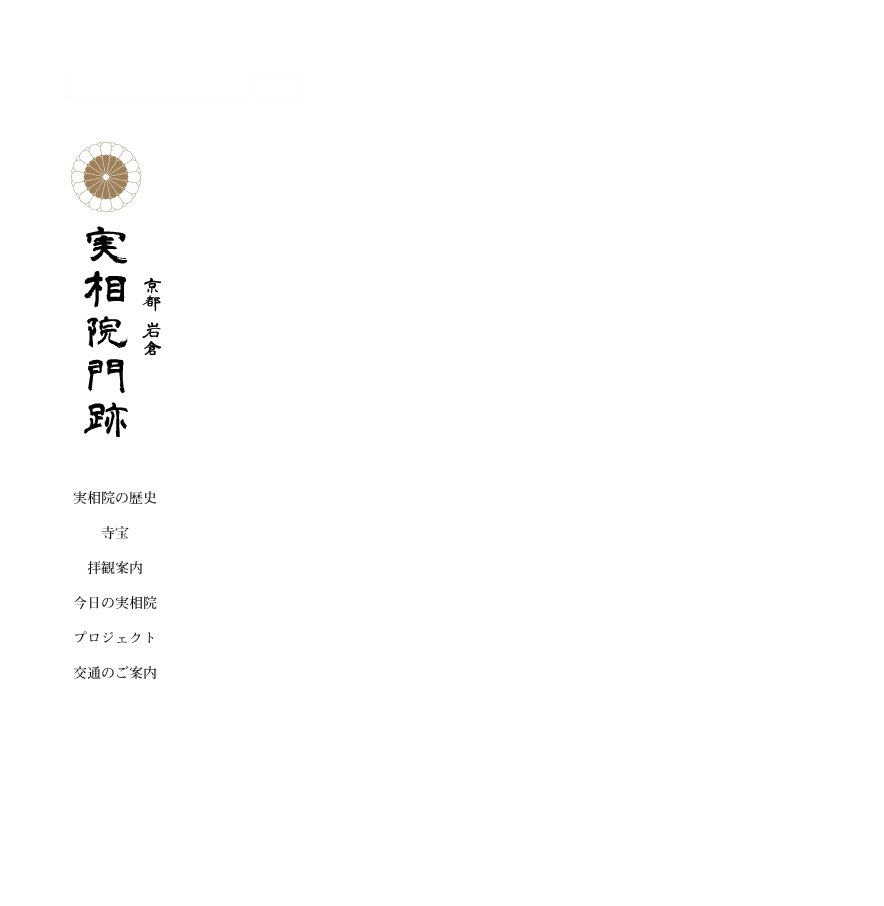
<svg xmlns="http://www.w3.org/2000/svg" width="884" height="906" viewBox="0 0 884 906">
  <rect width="100%" height="100%" fill="#ffffff"/>
  <rect x="64.5" y="77.5" width="184" height="20" rx="1.5" fill="none" stroke="#fcfcfc"/>
  <rect x="254.5" y="76.5" width="42" height="23" rx="1.5" fill="none" stroke="#fcfcfc"/>
  <image x="71" y="142" width="90" height="295" href="img1.png"/>
  <text x="73" y="503" font-family="'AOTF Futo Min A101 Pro'" font-size="14" font-weight="bold" fill="#000000">実相院の歴史</text>
  <text x="101" y="538" font-family="'AOTF Futo Min A101 Pro'" font-size="14" font-weight="bold" fill="#000000">寺宝</text>
  <text x="87" y="573" font-family="'AOTF Futo Min A101 Pro'" font-size="14" font-weight="bold" fill="#000000">拝観案内</text>
  <text x="73" y="608" font-family="'AOTF Futo Min A101 Pro'" font-size="14" font-weight="bold" fill="#000000">今日の実相院</text>
  <text x="73" y="643" font-family="'AOTF Futo Min A101 Pro'" font-size="14" font-weight="bold" fill="#000000">プロジェクト</text>
  <text x="73" y="678" font-family="'AOTF Futo Min A101 Pro'" font-size="14" font-weight="bold" fill="#000000">交通のご案内</text>
</svg>
